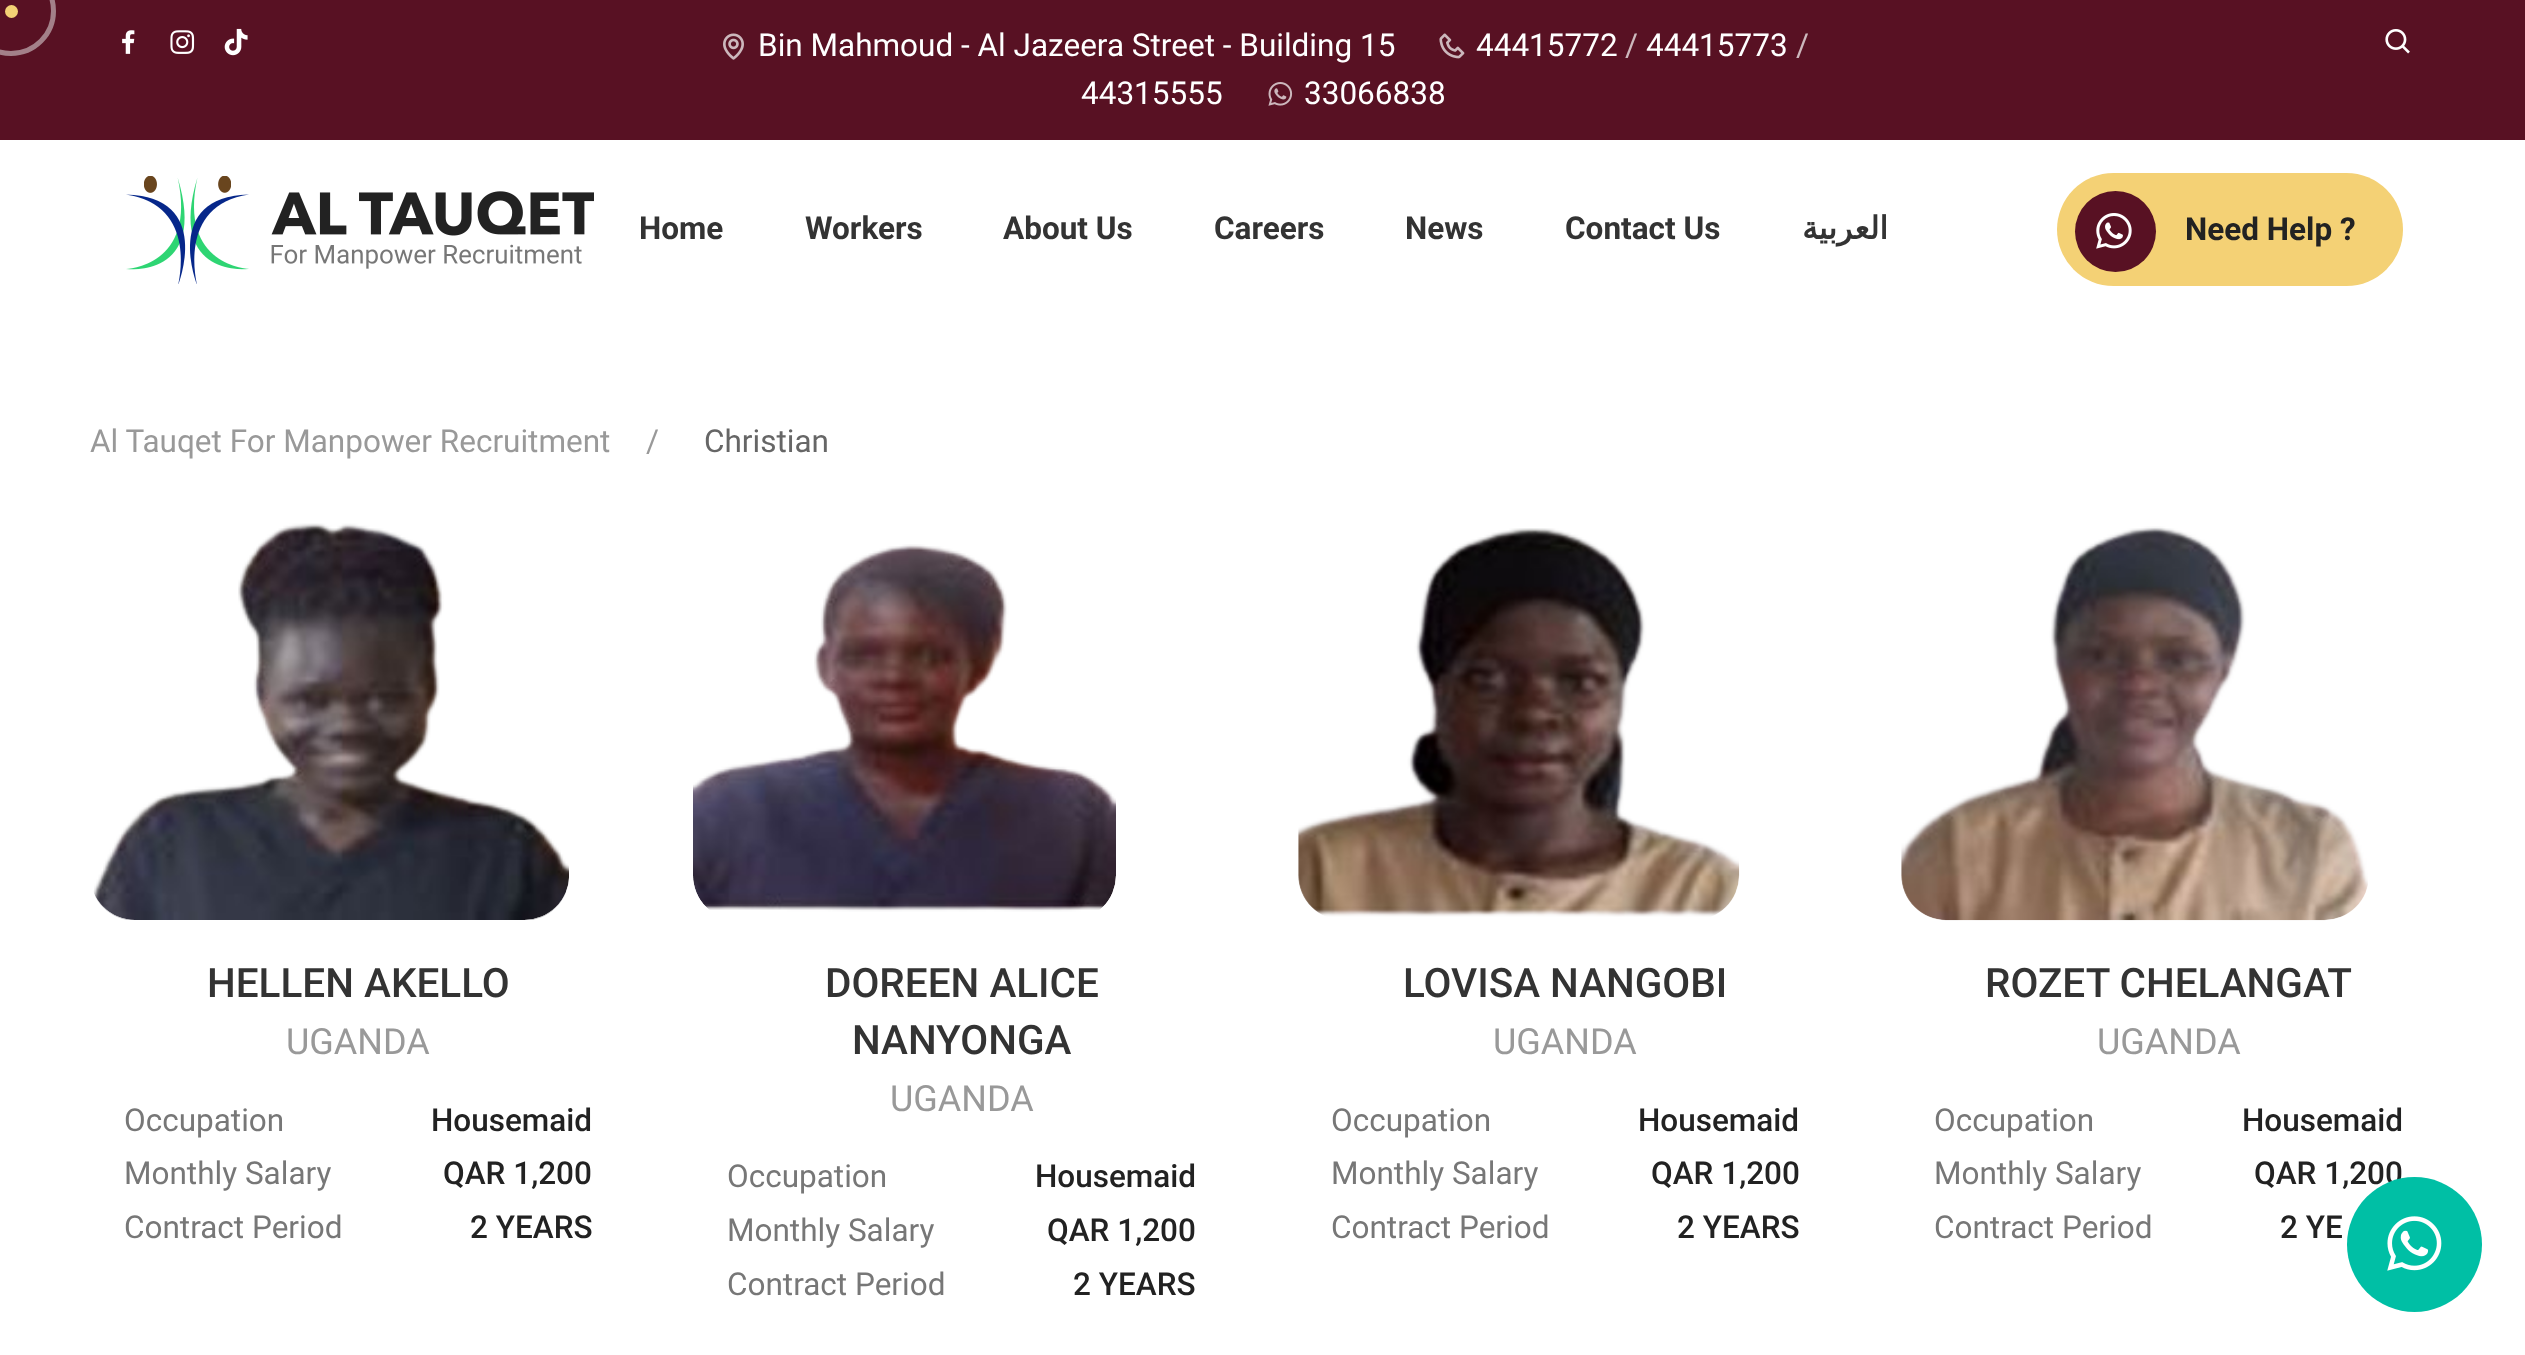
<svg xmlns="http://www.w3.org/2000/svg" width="2525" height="1355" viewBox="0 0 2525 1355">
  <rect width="100%" height="100%" fill="#ffffff"/>
  <rect x="0" y="0" width="2525" height="140" fill="#581123"/>
  <circle cx="11" cy="11" r="42.5" fill="none" stroke="#a38089" stroke-width="5"/>
  <circle cx="11.5" cy="11.5" r="6.5" fill="#f4d175"/>
  <image x="122" y="30" width="13" height="24" href="img1.png"/>
  <image x="170" y="30" width="25" height="24" href="img2.png"/>
  <image x="224" y="28" width="24" height="28" href="img3.png"/>
  <image x="723" y="33" width="21" height="27" href="img4.png"/>
  <text x="758" y="56" font-family="Roboto" font-size="31.5" fill="#ffffff">Bin Mahmoud - Al Jazeera Street - Building 15</text>
  <image x="1439" y="33" width="26" height="26" href="img5.png"/>
  <text x="1476" y="56" font-family="Roboto" font-size="31.5" fill="#ffffff">44415772</text>
  <text x="1625" y="56" font-family="Roboto" font-size="31.5" fill="#cdb8bd">/</text>
  <text x="1646" y="56" font-family="Roboto" font-size="31.5" fill="#ffffff">44415773</text>
  <text x="1796" y="56" font-family="Roboto" font-size="31.5" fill="#cdb8bd">/</text>
  <text x="1081" y="104" font-family="Roboto" font-size="31.5" fill="#ffffff">44315555</text>
  <image x="1268" y="82" width="25" height="24" href="img6.png"/>
  <text x="1304" y="104" font-family="Roboto" font-size="31.5" fill="#ffffff">33066838</text>
  <image x="2385" y="29" width="25" height="25" href="img7.png"/>
  <image x="126" y="176" width="468" height="108" href="img8.png"/>
  <text x="639" y="239" font-family="Roboto" font-size="31.5" font-weight="bold" fill="#333333">Home</text>
  <text x="805" y="239" font-family="Roboto" font-size="31.5" font-weight="bold" fill="#333333">Workers</text>
  <text x="1003" y="239" font-family="Roboto" font-size="31.5" font-weight="bold" fill="#333333">About Us</text>
  <text x="1214" y="239" font-family="Roboto" font-size="31.5" font-weight="bold" fill="#333333">Careers</text>
  <text x="1405" y="239" font-family="Roboto" font-size="31.5" font-weight="bold" fill="#333333">News</text>
  <text x="1565" y="239" font-family="Roboto" font-size="31.5" font-weight="bold" fill="#333333">Contact Us</text>
  <text x="1888" y="239" font-family="DejaVu Sans" font-size="31.5" font-weight="bold" direction="rtl" fill="#333333">العربية</text>
  <rect x="2057" y="173" width="346" height="113" rx="56.5" fill="#f4d175"/>
  <circle cx="2115.5" cy="231.5" r="40.5" fill="#581123"/>
  <image x="2096" y="213" width="36" height="36" href="img9.png"/>
  <text x="2185" y="240" font-family="Roboto" font-size="31.5" font-weight="bold" fill="#222222">Need Help ?</text>
  <text x="90" y="452" font-family="Roboto" font-size="31.5" fill="#999999">Al Tauqet For Manpower Recruitment</text>
  <text x="646" y="452" font-family="Roboto" font-size="31.5" fill="#999999">/</text>
  <text x="704" y="452" font-family="Roboto" font-size="31.5" fill="#666666">Christian</text>
  <image x="93" y="523" width="476" height="397" href="img10.png"/>
  <text x="207" y="997" font-family="Roboto" font-size="40.5" font-weight="500" fill="#333333">HELLEN AKELLO</text>
  <text x="286" y="1054" font-family="Roboto" font-size="36" fill="#999999">UGANDA</text>
  <text x="124" y="1131" font-family="Roboto" font-size="31.5" fill="#777777">Occupation</text>
  <text x="431" y="1131" font-family="Roboto" font-size="31.5" font-weight="500" fill="#222222">Housemaid</text>
  <text x="124" y="1184" font-family="Roboto" font-size="31.5" fill="#777777">Monthly Salary</text>
  <text x="443" y="1184" font-family="Roboto" font-size="31.5" font-weight="500" fill="#222222">QAR 1,200</text>
  <text x="124" y="1238" font-family="Roboto" font-size="31.5" fill="#777777">Contract Period</text>
  <text x="470" y="1238" font-family="Roboto" font-size="31.5" font-weight="500" fill="#222222">2 YEARS</text>
  <image x="693" y="544" width="423" height="368" href="img11.png"/>
  <text x="825" y="997" font-family="Roboto" font-size="40.5" font-weight="500" fill="#333333">DOREEN ALICE</text>
  <text x="852" y="1054" font-family="Roboto" font-size="40.5" font-weight="500" fill="#333333">NANYONGA</text>
  <text x="890" y="1111" font-family="Roboto" font-size="36" fill="#999999">UGANDA</text>
  <text x="727" y="1187" font-family="Roboto" font-size="31.5" fill="#777777">Occupation</text>
  <text x="1035" y="1187" font-family="Roboto" font-size="31.5" font-weight="500" fill="#222222">Housemaid</text>
  <text x="727" y="1241" font-family="Roboto" font-size="31.5" fill="#777777">Monthly Salary</text>
  <text x="1047" y="1241" font-family="Roboto" font-size="31.5" font-weight="500" fill="#222222">QAR 1,200</text>
  <text x="727" y="1295" font-family="Roboto" font-size="31.5" fill="#777777">Contract Period</text>
  <text x="1073" y="1295" font-family="Roboto" font-size="31.5" font-weight="500" fill="#222222">2 YEARS</text>
  <image x="1298" y="528" width="442" height="389" href="img12.png"/>
  <text x="1403" y="997" font-family="Roboto" font-size="40.5" font-weight="500" fill="#333333">LOVISA NANGOBI</text>
  <text x="1493" y="1054" font-family="Roboto" font-size="36" fill="#999999">UGANDA</text>
  <text x="1331" y="1131" font-family="Roboto" font-size="31.5" fill="#777777">Occupation</text>
  <text x="1638" y="1131" font-family="Roboto" font-size="31.5" font-weight="500" fill="#222222">Housemaid</text>
  <text x="1331" y="1184" font-family="Roboto" font-size="31.5" fill="#777777">Monthly Salary</text>
  <text x="1651" y="1184" font-family="Roboto" font-size="31.5" font-weight="500" fill="#222222">QAR 1,200</text>
  <text x="1331" y="1238" font-family="Roboto" font-size="31.5" fill="#777777">Contract Period</text>
  <text x="1677" y="1238" font-family="Roboto" font-size="31.5" font-weight="500" fill="#222222">2 YEARS</text>
  <image x="1901" y="526" width="467" height="395" href="img13.png"/>
  <text x="1985" y="997" font-family="Roboto" font-size="40.5" font-weight="500" fill="#333333">ROZET CHELANGAT</text>
  <text x="2097" y="1054" font-family="Roboto" font-size="36" fill="#999999">UGANDA</text>
  <text x="1934" y="1131" font-family="Roboto" font-size="31.5" fill="#777777">Occupation</text>
  <text x="2242" y="1131" font-family="Roboto" font-size="31.5" font-weight="500" fill="#222222">Housemaid</text>
  <text x="1934" y="1184" font-family="Roboto" font-size="31.5" fill="#777777">Monthly Salary</text>
  <text x="2254" y="1184" font-family="Roboto" font-size="31.5" font-weight="500" fill="#222222">QAR 1,200</text>
  <text x="1934" y="1238" font-family="Roboto" font-size="31.5" fill="#777777">Contract Period</text>
  <text x="2280" y="1238" font-family="Roboto" font-size="31.5" font-weight="500" fill="#222222">2 YE</text>
  <circle cx="2414.5" cy="1244.5" r="67.5" fill="#00bfa5"/>
  <image x="2387" y="1216" width="55" height="55" href="img14.png"/>
</svg>
